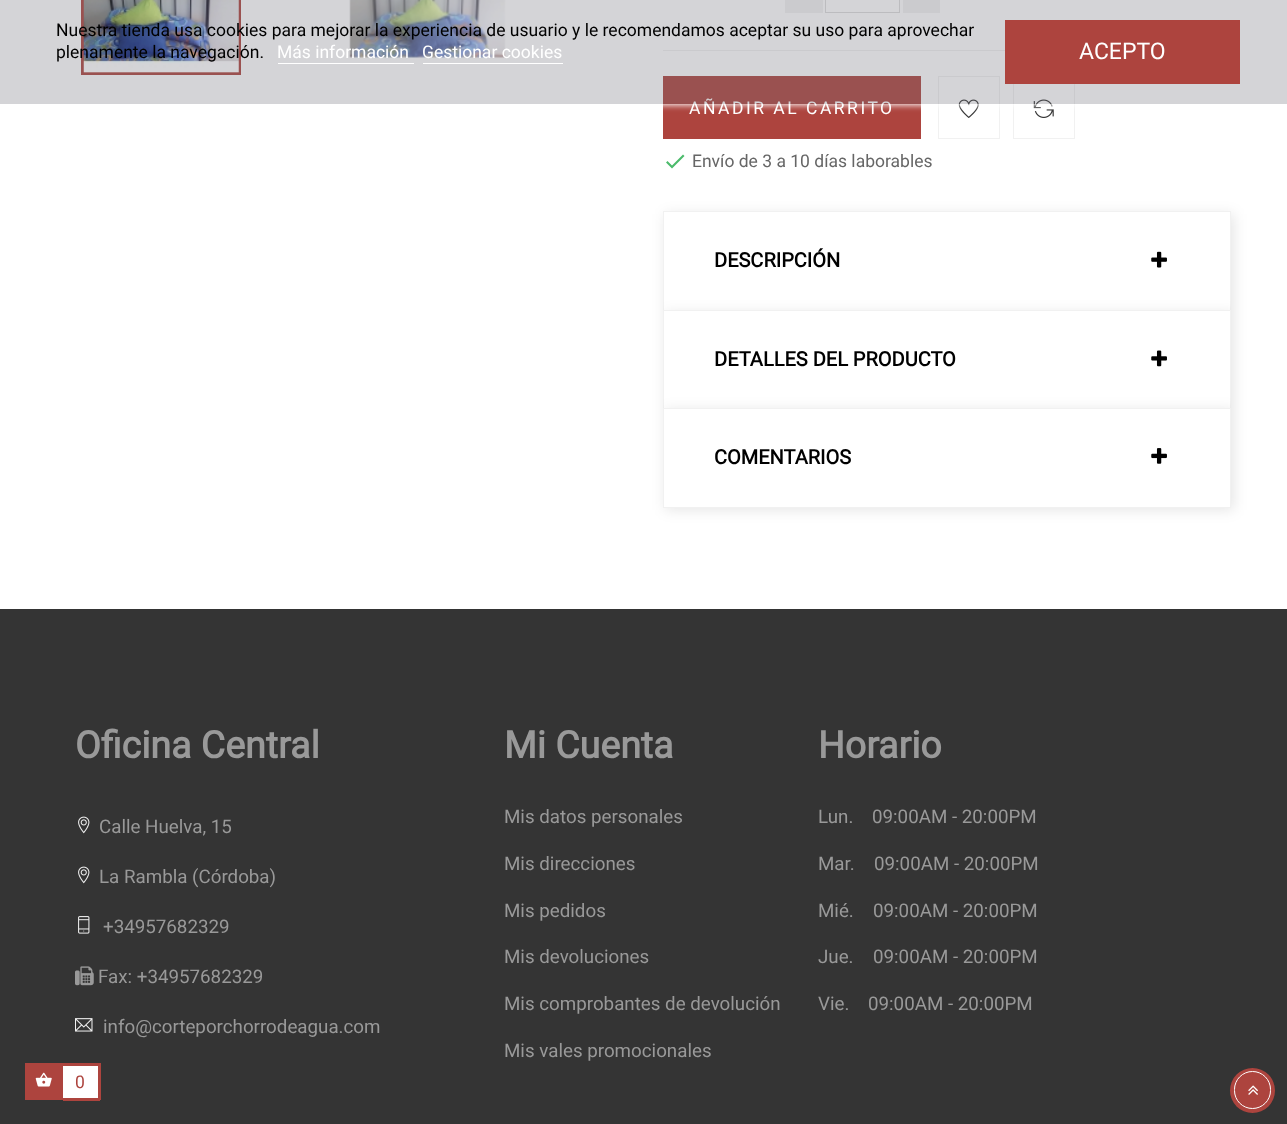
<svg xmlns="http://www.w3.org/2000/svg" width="1287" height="1124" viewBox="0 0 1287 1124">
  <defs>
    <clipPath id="clip1"><path d="M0 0H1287V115H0ZM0 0H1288V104H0Z" clip-rule="evenodd"/></clipPath>
    <filter id="blur1" x="-50%" y="-200%" width="200%" height="500%"><feGaussianBlur stdDeviation="3"/></filter>
    <filter id="blur2" x="-50%" y="-200%" width="200%" height="500%"><feGaussianBlur stdDeviation="7"/></filter>
  </defs>
  <rect width="100%" height="100%" fill="#ffffff"/>
  <rect x="82.5" y="-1.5" width="157" height="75" fill="none" stroke="#ad443e" stroke-width="3"/>
  <image x="83" y="0" width="156" height="73" href="img1.png"/>
  <image x="349" y="0" width="157" height="59" href="img2.png"/>
  <rect x="825.5" y="-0.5" width="74" height="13" fill="none" stroke="#dddddd"/>
  <rect x="785" y="0" width="38" height="13" fill="#f3f3f3"/>
  <rect x="903" y="0" width="37" height="13" fill="#f3f3f3"/>
  <rect x="663" y="50" width="342" height="1" fill="#f1f1f1"/>
  <rect x="663" y="76" width="258" height="63" fill="#ad443e"/>
  <rect x="938.5" y="76.5" width="61" height="62" fill="none" stroke="#f1f1f1"/>
  <image x="958" y="99" width="21" height="19" href="img3.png"/>
  <rect x="1013.5" y="76.5" width="61" height="62" fill="none" stroke="#f1f1f1"/>
  <image x="1033" y="99" width="21" height="19" href="img4.png"/>
  <g clip-path="url(#clip1)">
    <rect x="0" y="1" width="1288" height="104" fill="#ffffff" filter="url(#blur1)"/>
  </g>
  <text x="689" y="114" font-family="Roboto" font-size="17.5" letter-spacing="2.5" fill="#ffffff">AÑADIR AL CARRITO</text>
  <rect x="0" y="0" width="1287" height="104" fill="#70707a" fill-opacity="0.3"/>
  <text x="56" y="36" font-family="Roboto" font-size="17.5" fill="#000000">Nuestra tienda usa cookies para mejorar la experiencia de usuario y le recomendamos aceptar su uso para aprovechar</text>
  <text x="56" y="58" font-family="Roboto" font-size="17.5" fill="#000000">plenamente la navegación.</text>
  <text x="277" y="58" font-family="Roboto" font-size="17.5" fill="#ffffff">Más información</text>
  <rect x="278" y="63" width="136" height="1" fill="#ffffff"/>
  <text x="422" y="58" font-family="Roboto" font-size="17.5" fill="#ffffff">Gestionar cookies</text>
  <rect x="423" y="63" width="140" height="1" fill="#ffffff"/>
  <rect x="1005" y="20" width="235" height="64" fill="#ad443e"/>
  <text x="1079" y="59" font-family="Roboto" font-size="23" fill="#ffffff">ACEPTO</text>
  <path d="M672 165.5L683 154.5L684.5 156L672 168.5L666 162.5L667.5 161Z" fill="#4cbb6c"/>
  <text x="692" y="167" font-family="Roboto" font-size="17.5" fill="#666666">Envío de 3 a 10 días laborables</text>
  <rect x="665" y="214" width="569" height="99" fill="#000000" fill-opacity="0.1" filter="url(#blur2)"/>
  <rect x="664" y="212" width="566" height="98" fill="#ffffff"/>
  <rect x="663" y="211" width="568" height="1" fill="#f1f1f1"/>
  <rect x="1230" y="211" width="1" height="99" fill="#f1f1f1"/>
  <rect x="663" y="211" width="1" height="99" fill="#f1f1f1"/>
  <text x="714" y="267" font-family="Roboto" font-size="20" font-weight="bold" fill="#000000">DESCRIPCIÓN</text>
  <image x="1151" y="251" width="16" height="17" href="img5.png"/>
  <rect x="665" y="313" width="569" height="97" fill="#000000" fill-opacity="0.1" filter="url(#blur2)"/>
  <rect x="664" y="311" width="566" height="97" fill="#ffffff"/>
  <rect x="663" y="310" width="568" height="1" fill="#f1f1f1"/>
  <rect x="1230" y="310" width="1" height="98" fill="#f1f1f1"/>
  <rect x="663" y="310" width="1" height="98" fill="#f1f1f1"/>
  <text x="714" y="366" font-family="Roboto" font-size="20" font-weight="bold" fill="#000000">DETALLES DEL PRODUCTO</text>
  <image x="1151" y="350" width="16" height="17" href="img6.png"/>
  <rect x="665" y="410" width="569" height="100" fill="#000000" fill-opacity="0.1" filter="url(#blur2)"/>
  <rect x="663.5" y="408.5" width="567" height="99" fill="#ffffff" stroke="#f1f1f1"/>
  <text x="714" y="464" font-family="Roboto" font-size="20" font-weight="bold" fill="#000000">COMENTARIOS</text>
  <image x="1151" y="448" width="16" height="16" href="img7.png"/>
  <rect x="0" y="609" width="1287" height="515" fill="#343434"/>
  <text x="75" y="758" font-family="Roboto" font-size="37.5" font-weight="bold" fill="#999999">Oficina Central</text>
  <image x="78" y="816" width="12" height="18" href="img8.png"/>
  <text x="99" y="833" font-family="Roboto" font-size="18.75" fill="#999999">Calle Huelva, 15</text>
  <image x="78" y="866" width="12" height="18" href="img8.png"/>
  <text x="99" y="883" font-family="Roboto" font-size="18.75" fill="#999999">La Rambla (Córdoba)</text>
  <image x="78" y="916" width="12" height="18" href="img9.png"/>
  <text x="103" y="933" font-family="Roboto" font-size="18.75" fill="#999999">+34957682329</text>
  <image x="75" y="966" width="19" height="20" href="img10.png"/>
  <text x="98" y="983" font-family="Roboto" font-size="18.75" fill="#999999">Fax: +34957682329</text>
  <image x="75" y="1018" width="18" height="14" href="img11.png"/>
  <text x="103" y="1033" font-family="Roboto" font-size="18.75" fill="#999999">info@corteporchorrodeagua.com</text>
  <text x="504" y="758" font-family="Roboto" font-size="37.5" font-weight="bold" fill="#999999">Mi Cuenta</text>
  <text x="504" y="823" font-family="Roboto" font-size="18.75" fill="#999999">Mis datos personales</text>
  <text x="504" y="870" font-family="Roboto" font-size="18.75" fill="#999999">Mis direcciones</text>
  <text x="504" y="917" font-family="Roboto" font-size="18.75" fill="#999999">Mis pedidos</text>
  <text x="504" y="963" font-family="Roboto" font-size="18.75" fill="#999999">Mis devoluciones</text>
  <text x="504" y="1010" font-family="Roboto" font-size="18.75" fill="#999999">Mis comprobantes de devolución</text>
  <text x="504" y="1057" font-family="Roboto" font-size="18.75" fill="#999999">Mis vales promocionales</text>
  <text x="818" y="758" font-family="Roboto" font-size="37.5" font-weight="bold" fill="#999999">Horario</text>
  <text x="818" y="823" font-family="Roboto" font-size="18.75" fill="#999999">Lun.</text>
  <text x="872" y="823" font-family="Roboto" font-size="18.75" fill="#999999">09:00AM - 20:00PM</text>
  <text x="818" y="870" font-family="Roboto" font-size="18.75" fill="#999999">Mar.</text>
  <text x="874" y="870" font-family="Roboto" font-size="18.75" fill="#999999">09:00AM - 20:00PM</text>
  <text x="818" y="917" font-family="Roboto" font-size="18.75" fill="#999999">Mié.</text>
  <text x="873" y="917" font-family="Roboto" font-size="18.75" fill="#999999">09:00AM - 20:00PM</text>
  <text x="818" y="963" font-family="Roboto" font-size="18.75" fill="#999999">Jue.</text>
  <text x="873" y="963" font-family="Roboto" font-size="18.75" fill="#999999">09:00AM - 20:00PM</text>
  <text x="818" y="1010" font-family="Roboto" font-size="18.75" fill="#999999">Vie.</text>
  <text x="868" y="1010" font-family="Roboto" font-size="18.75" fill="#999999">09:00AM - 20:00PM</text>
  <circle cx="1252.5" cy="1090.5" r="22.5" fill="#ad443e"/>
  <rect x="1234.5" y="1071.5" width="36" height="37" rx="18" fill="none" stroke="#ffffff"/>
  <image x="1248" y="1085" width="10" height="10" href="img12.png"/>
  <rect x="25" y="1063" width="38" height="37" fill="#ad443e"/>
  <image x="35" y="1072" width="17" height="15" href="img13.png"/>
  <rect x="63" y="1066" width="35" height="32" fill="#ffffff"/>
  <rect x="63" y="1063" width="37" height="3" fill="#ad443e"/>
  <rect x="98" y="1063" width="3" height="37" fill="#ad443e"/>
  <rect x="63" y="1098" width="37" height="3" fill="#ad443e"/>
  <text x="75" y="1088" font-family="Roboto" font-size="17.5" fill="#ad443e">0</text>
</svg>
